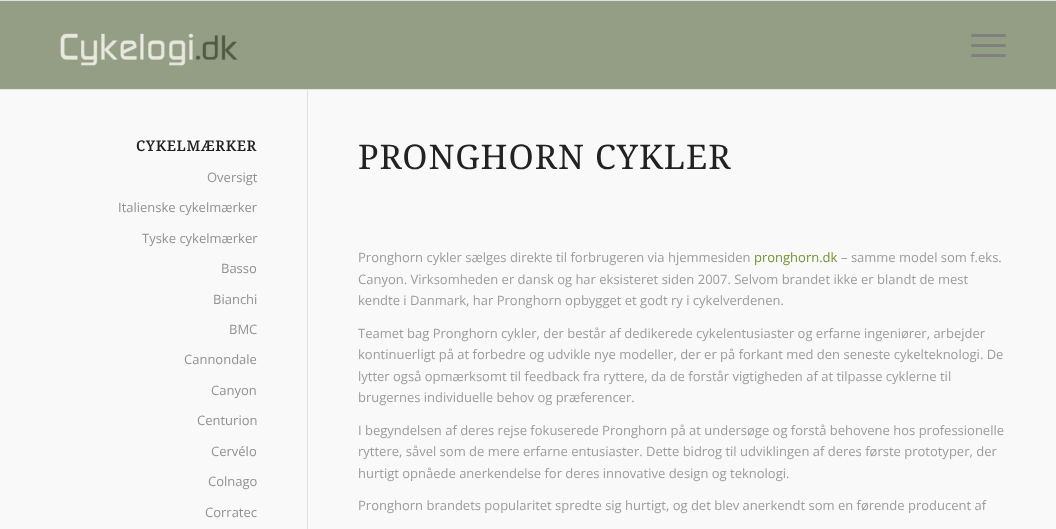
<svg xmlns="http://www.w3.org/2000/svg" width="1056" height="529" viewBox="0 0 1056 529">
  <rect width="100%" height="100%" fill="#949e85"/>
  <rect x="0" y="0" width="1056" height="1" fill="#e1e1e1"/>
  <rect x="0" y="90" width="1056" height="439" fill="#f9f9f9"/>
  <rect x="307" y="89" width="1" height="440" fill="#e1e1e1"/>
  <rect x="0" y="89" width="1056" height="1" fill="#e1e1e1"/>
  <image x="60" y="33" width="178" height="33" href="img1.png"/>
  <rect x="971" y="44" width="35" height="3" rx="1.5" fill="#808080"/>
  <rect x="971" y="34" width="35" height="3" rx="1.5" fill="#808080"/>
  <rect x="971" y="54" width="35" height="3" rx="1.5" fill="#808080"/>
  <rect x="0" y="88" width="1056" height="1" fill="#98a18a"/>
  <text x="136" y="151" font-family="Droid Serif" font-size="14.25" font-weight="bold" letter-spacing="1" fill="#222222">CYKELMÆRKER</text>
  <text x="207" y="182" font-family="Open Sans" font-size="13" fill="#919191">Oversigt</text>
  <text x="118" y="212" font-family="Open Sans" font-size="13" fill="#919191">Italienske cykelmærker</text>
  <text x="142" y="243" font-family="Open Sans" font-size="13" fill="#919191">Tyske cykelmærker</text>
  <text x="221" y="273" font-family="Open Sans" font-size="13" fill="#919191">Basso</text>
  <text x="213" y="304" font-family="Open Sans" font-size="13" fill="#919191">Bianchi</text>
  <text x="229" y="334" font-family="Open Sans" font-size="13" fill="#919191">BMC</text>
  <text x="184" y="364" font-family="Open Sans" font-size="13" fill="#919191">Cannondale</text>
  <text x="211" y="395" font-family="Open Sans" font-size="13" fill="#919191">Canyon</text>
  <text x="197" y="425" font-family="Open Sans" font-size="13" fill="#919191">Centurion</text>
  <text x="211" y="456" font-family="Open Sans" font-size="13" fill="#919191">Cervélo</text>
  <text x="208" y="486" font-family="Open Sans" font-size="13" fill="#919191">Colnago</text>
  <text x="205" y="517" font-family="Open Sans" font-size="13" fill="#919191">Corratec</text>
  <text x="358" y="169" font-family="Droid Serif" font-size="34" letter-spacing="1" fill="#222222">PRONGHORN CYKLER</text>
  <text x="358" y="262" font-family="Open Sans" font-size="13" fill="#9c9c9c">Pronghorn cykler sælges direkte til forbrugeren via hjemmesiden</text>
  <text x="754" y="262" font-family="Open Sans" font-size="13" fill="#719430">pronghorn.dk</text>
  <text x="841" y="262" font-family="Open Sans" font-size="13" fill="#9c9c9c">– samme model som f.eks.</text>
  <text x="358" y="284" font-family="Open Sans" font-size="13" fill="#9c9c9c">Canyon. Virksomheden er dansk og har eksisteret siden 2007. Selvom brandet ikke er blandt de mest</text>
  <text x="358" y="305" font-family="Open Sans" font-size="13" fill="#9c9c9c">kendte i Danmark, har Pronghorn opbygget et godt ry i cykelverdenen.</text>
  <text x="358" y="338" font-family="Open Sans" font-size="13" fill="#9c9c9c">Teamet bag Pronghorn cykler, der består af dedikerede cykelentusiaster og erfarne ingeniører, arbejder</text>
  <text x="358" y="359" font-family="Open Sans" font-size="13" fill="#9c9c9c">kontinuerligt på at forbedre og udvikle nye modeller, der er på forkant med den seneste cykelteknologi. De</text>
  <text x="358" y="381" font-family="Open Sans" font-size="13" fill="#9c9c9c">lytter også opmærksomt til feedback fra ryttere, da de forstår vigtigheden af at tilpasse cyklerne til</text>
  <text x="358" y="402" font-family="Open Sans" font-size="13" fill="#9c9c9c">brugernes individuelle behov og præferencer.</text>
  <text x="358" y="435" font-family="Open Sans" font-size="13" fill="#9c9c9c">I begyndelsen af deres rejse fokuserede Pronghorn på at undersøge og forstå behovene hos professionelle</text>
  <text x="358" y="456" font-family="Open Sans" font-size="13" fill="#9c9c9c">ryttere, såvel som de mere erfarne entusiaster. Dette bidrog til udviklingen af deres første prototyper, der</text>
  <text x="358" y="478" font-family="Open Sans" font-size="13" fill="#9c9c9c">hurtigt opnåede anerkendelse for deres innovative design og teknologi.</text>
  <text x="358" y="510" font-family="Open Sans" font-size="13" fill="#9c9c9c">Pronghorn brandets popularitet spredte sig hurtigt, og det blev anerkendt som en førende producent af</text>
</svg>
